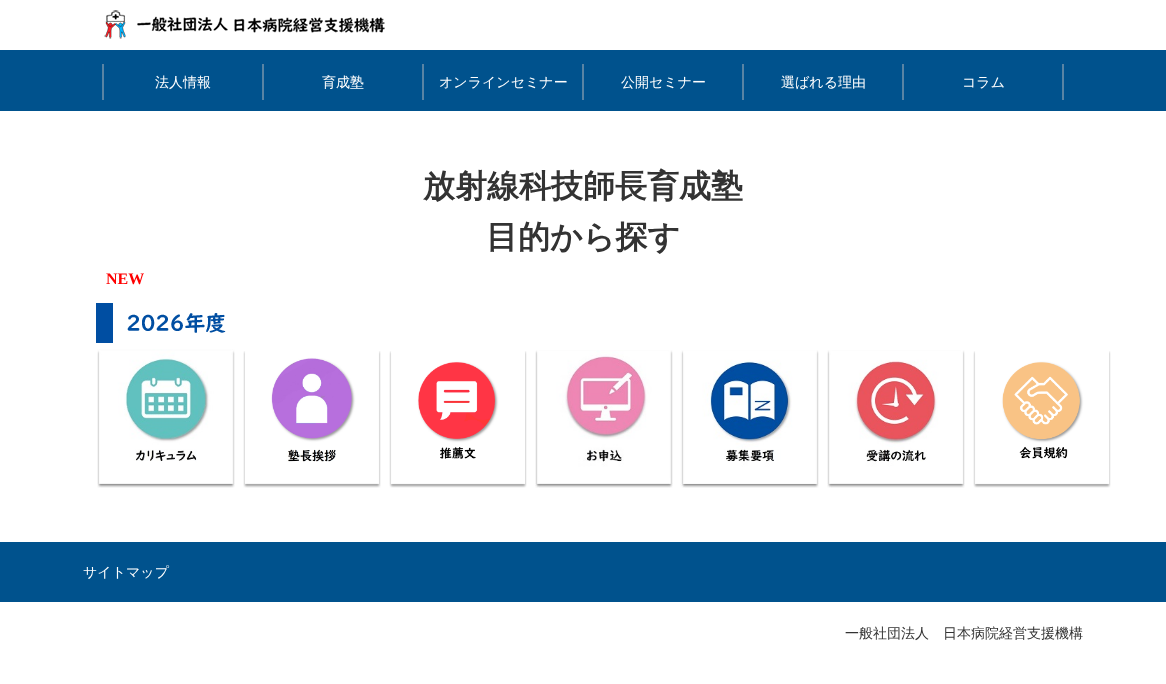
<svg xmlns="http://www.w3.org/2000/svg" width="1166" height="684" viewBox="0 0 1166 684">
  <rect width="100%" height="100%" fill="#ffffff"/>
  <rect x="0" y="50" width="1166" height="61" fill="#00528d"/>
  <image x="104" y="10" width="281" height="29" href="img1.png"/>
  <rect x="102" y="64" width="2" height="36" fill="#5984a4"/>
  <text x="155" y="87" font-family="WenQuanYi Zen Hei" font-size="14" font-weight="500" fill="#ffffff">法人情報</text>
  <rect x="262" y="64" width="2" height="36" fill="#5984a4"/>
  <text x="322" y="87" font-family="WenQuanYi Zen Hei" font-size="14" font-weight="500" fill="#ffffff">育成塾</text>
  <rect x="422" y="64" width="2" height="36" fill="#5984a4"/>
  <text x="439" y="87" font-family="WenQuanYi Zen Hei" font-size="14" font-weight="500" fill="#ffffff">オンラインセミナー</text>
  <rect x="582" y="64" width="2" height="36" fill="#5984a4"/>
  <text x="621" y="87" font-family="WenQuanYi Zen Hei" font-size="14" font-weight="500" fill="#ffffff">公開セミナー</text>
  <rect x="742" y="64" width="2" height="36" fill="#5984a4"/>
  <text x="781" y="87" font-family="WenQuanYi Zen Hei" font-size="14" font-weight="500" fill="#ffffff">選ばれる理由</text>
  <rect x="902" y="64" width="2" height="36" fill="#5984a4"/>
  <text x="962" y="87" font-family="WenQuanYi Zen Hei" font-size="14" font-weight="500" fill="#ffffff">コラム</text>
  <rect x="1062" y="64" width="2" height="36" fill="#5984a4"/>
  <text x="423" y="197" font-family="WenQuanYi Zen Hei" font-size="32" font-weight="bold" fill="#333333">放射線科技師長育成塾</text>
  <text x="486" y="248" font-family="WenQuanYi Zen Hei" font-size="32" font-weight="bold" fill="#333333">目的から探す</text>
  <text x="106" y="284" font-family="Liberation Serif" font-size="16" font-weight="bold" fill="#ff0000">NEW</text>
  <image x="96" y="303" width="130" height="40" href="img2.png"/>
  <image x="97" y="349" width="138" height="139" href="img3.png"/>
  <image x="243" y="351" width="138" height="137" href="img4.png"/>
  <image x="389" y="351" width="138" height="137" href="img5.png"/>
  <image x="535" y="350" width="138" height="138" href="img6.png"/>
  <image x="680" y="350" width="139" height="138" href="img7.png"/>
  <image x="827" y="350" width="138" height="138" href="img8.png"/>
  <image x="973" y="351" width="138" height="137" href="img9.png"/>
  <rect x="0" y="542" width="1166" height="60" fill="#00528d"/>
  <text x="83" y="577" font-family="WenQuanYi Zen Hei" font-size="14" font-weight="500" fill="#ffffff">サイトマップ</text>
  <text x="845" y="638" font-family="WenQuanYi Zen Hei" font-size="14" font-weight="500" fill="#333333">一般社団法人　日本病院経営支援機構</text>
</svg>
